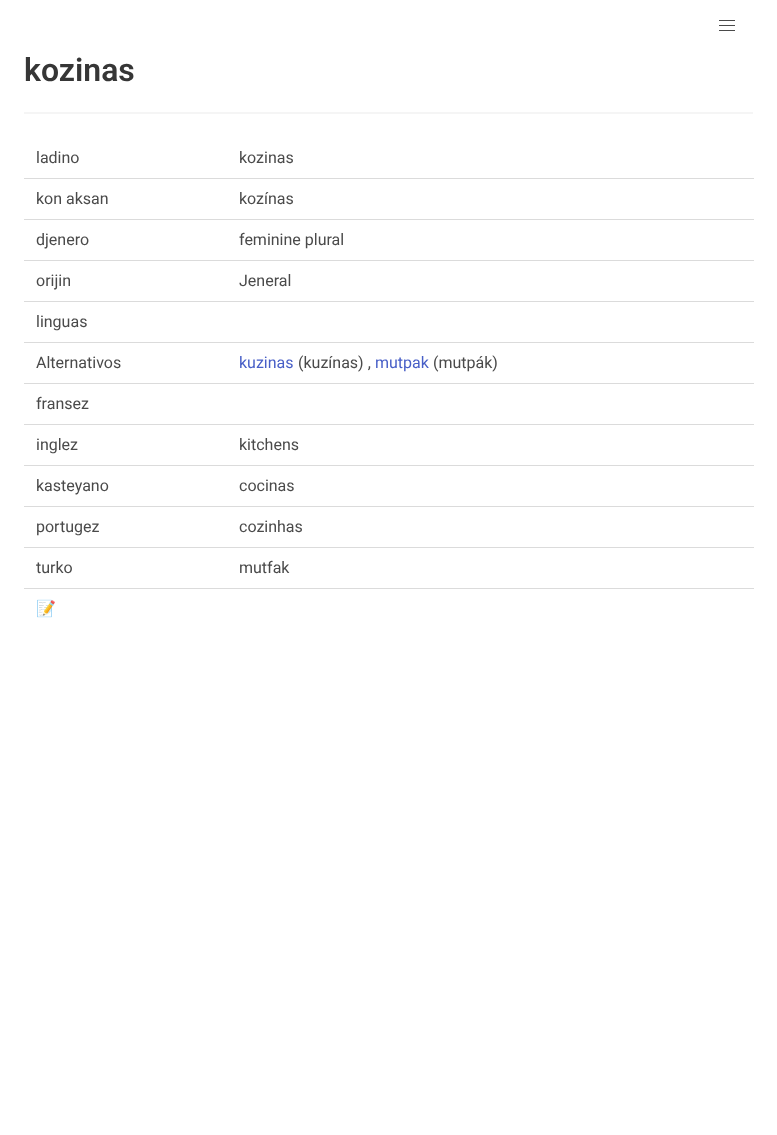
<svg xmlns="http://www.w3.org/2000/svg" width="777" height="1135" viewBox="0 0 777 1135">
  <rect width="100%" height="100%" fill="#ffffff"/>
  <rect x="719" y="20" width="16" height="1" fill="#4a4a4a"/>
  <rect x="719" y="25" width="16" height="1" fill="#4a4a4a"/>
  <rect x="719" y="30" width="16" height="1" fill="#4a4a4a"/>
  <text x="24" y="81" font-family="Roboto" font-size="32" font-weight="600" fill="#363636">kozinas</text>
  <rect x="24" y="112" width="729" height="2" fill="#f5f5f5"/>
  <text x="36" y="163" font-family="Roboto" font-size="16" fill="#4a4a4a">ladino</text>
  <rect x="24" y="178" width="730" height="1" fill="#dbdbdb"/>
  <text x="239" y="163" font-family="Roboto" font-size="16" fill="#4a4a4a">kozinas</text>
  <text x="36" y="204" font-family="Roboto" font-size="16" fill="#4a4a4a">kon aksan</text>
  <rect x="24" y="219" width="730" height="1" fill="#dbdbdb"/>
  <text x="239" y="204" font-family="Roboto" font-size="16" fill="#4a4a4a">kozínas</text>
  <text x="36" y="245" font-family="Roboto" font-size="16" fill="#4a4a4a">djenero</text>
  <rect x="24" y="260" width="730" height="1" fill="#dbdbdb"/>
  <text x="239" y="245" font-family="Roboto" font-size="16" fill="#4a4a4a">feminine plural</text>
  <text x="36" y="286" font-family="Roboto" font-size="16" fill="#4a4a4a">orijin</text>
  <rect x="24" y="301" width="730" height="1" fill="#dbdbdb"/>
  <text x="239" y="286" font-family="Roboto" font-size="16" fill="#4a4a4a">Jeneral</text>
  <text x="36" y="327" font-family="Roboto" font-size="16" fill="#4a4a4a">linguas</text>
  <rect x="24" y="342" width="730" height="1" fill="#dbdbdb"/>
  <text x="36" y="368" font-family="Roboto" font-size="16" fill="#4a4a4a">Alternativos</text>
  <rect x="24" y="383" width="730" height="1" fill="#dbdbdb"/>
  <text x="239" y="368" font-family="Roboto" font-size="16" fill="#485fc7">kuzinas</text>
  <text x="298" y="368" font-family="Roboto" font-size="16" fill="#4a4a4a">(kuzínas) ,</text>
  <text x="375" y="368" font-family="Roboto" font-size="16" fill="#485fc7">mutpak</text>
  <text x="433" y="368" font-family="Roboto" font-size="16" fill="#4a4a4a">(mutpák)</text>
  <text x="36" y="409" font-family="Roboto" font-size="16" fill="#4a4a4a">fransez</text>
  <rect x="24" y="424" width="730" height="1" fill="#dbdbdb"/>
  <text x="36" y="450" font-family="Roboto" font-size="16" fill="#4a4a4a">inglez</text>
  <rect x="24" y="465" width="730" height="1" fill="#dbdbdb"/>
  <text x="239" y="450" font-family="Roboto" font-size="16" fill="#4a4a4a">kitchens</text>
  <text x="36" y="491" font-family="Roboto" font-size="16" fill="#4a4a4a">kasteyano</text>
  <rect x="24" y="506" width="730" height="1" fill="#dbdbdb"/>
  <text x="239" y="491" font-family="Roboto" font-size="16" fill="#4a4a4a">cocinas</text>
  <text x="36" y="532" font-family="Roboto" font-size="16" fill="#4a4a4a">portugez</text>
  <rect x="24" y="547" width="730" height="1" fill="#dbdbdb"/>
  <text x="239" y="532" font-family="Roboto" font-size="16" fill="#4a4a4a">cozinhas</text>
  <text x="36" y="573" font-family="Roboto" font-size="16" fill="#4a4a4a">turko</text>
  <rect x="24" y="588" width="730" height="1" fill="#dbdbdb"/>
  <text x="239" y="573" font-family="Roboto" font-size="16" fill="#4a4a4a">mutfak</text>
  <text x="36" y="614" font-family="Noto Color Emoji" font-size="16" fill="#485fc7">📝</text>
</svg>
